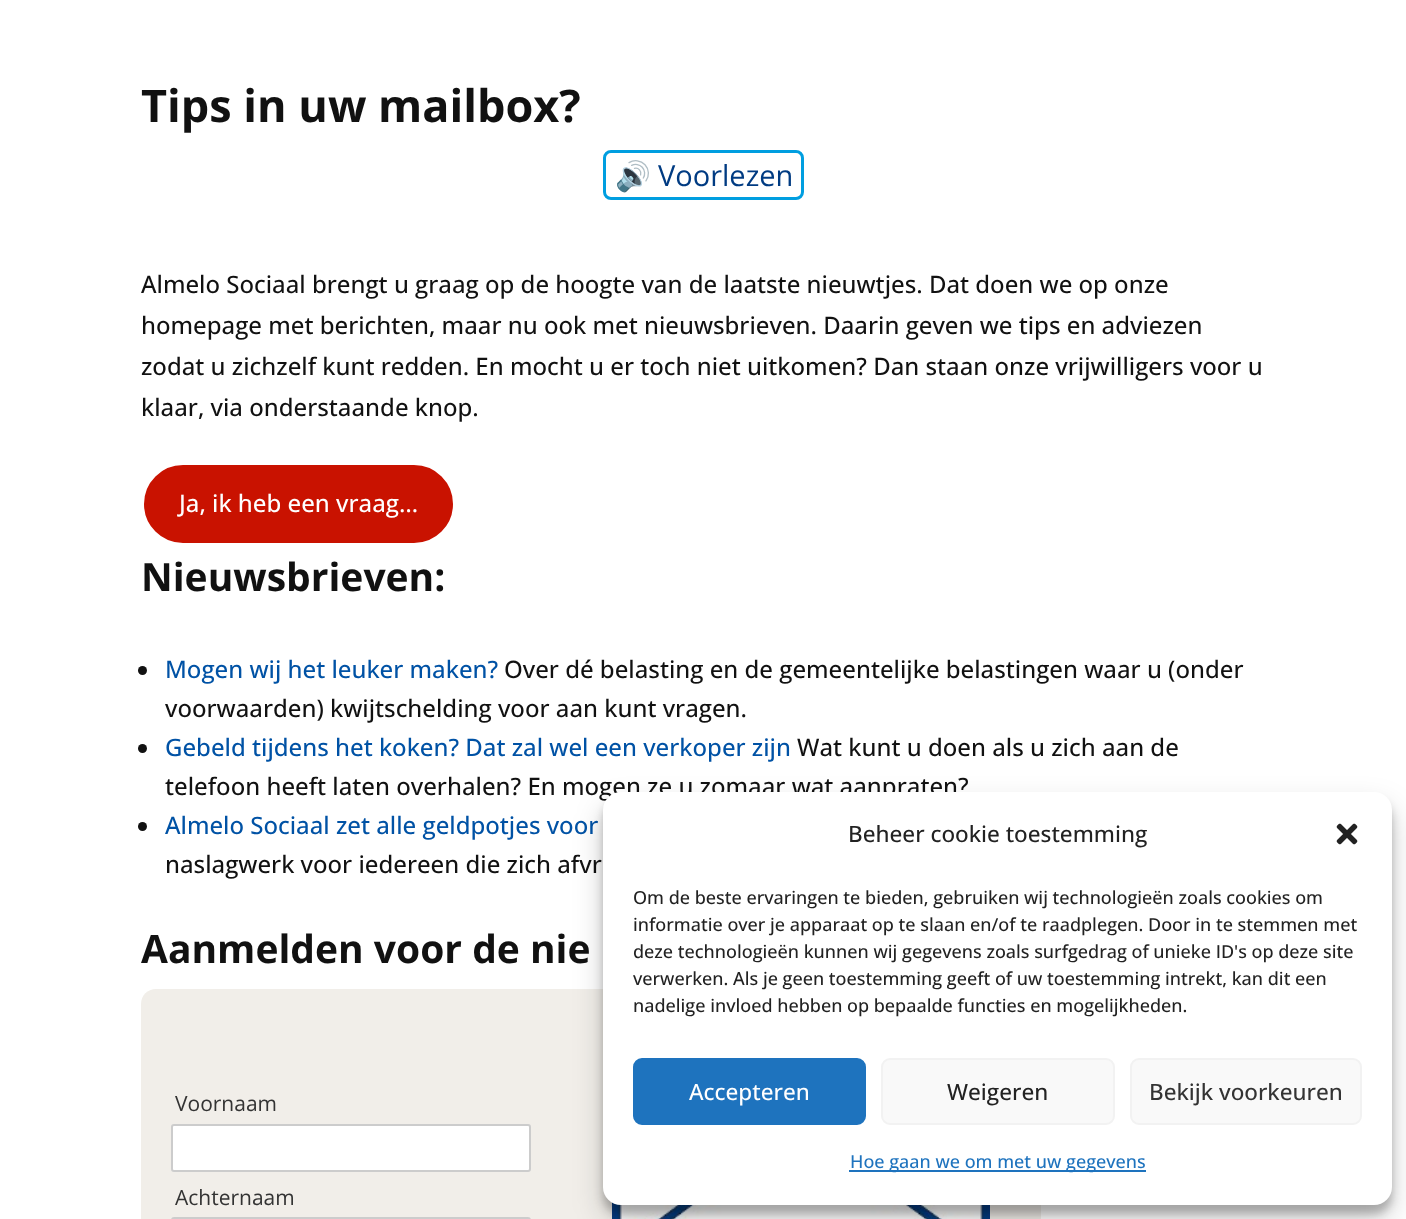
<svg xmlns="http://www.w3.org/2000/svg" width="1406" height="1219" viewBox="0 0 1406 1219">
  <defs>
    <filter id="blur1" x="-50%" y="-200%" width="200%" height="500%"><feGaussianBlur stdDeviation="4.5"/></filter>
    <filter id="blur2" x="-50%" y="-200%" width="200%" height="500%"><feGaussianBlur stdDeviation="15"/></filter>
  </defs>
  <rect width="100%" height="100%" fill="#ffffff"/>
  <text x="141" y="122" font-family="Open Sans" font-size="45" font-weight="bold" fill="#111111">Tips in uw mailbox?</text>
  <rect x="604.5" y="151.5" width="198" height="47" rx="6.5" fill="none" stroke="#009ee0" stroke-width="3"/>
  <text x="615" y="186" font-family="Noto Color Emoji" font-size="29" fill="#003b82">🔊</text>
  <text x="658" y="186" font-family="Open Sans" font-size="29" fill="#003b82">Voorlezen</text>
  <text x="141" y="293" font-family="Open Sans" font-size="24" font-weight="500" fill="#111111">Almelo Sociaal brengt u graag op de hoogte van de laatste nieuwtjes. Dat doen we op onze</text>
  <text x="141" y="334" font-family="Open Sans" font-size="24" font-weight="500" fill="#111111">homepage met berichten, maar nu ook met nieuwsbrieven. Daarin geven we tips en adviezen</text>
  <text x="141" y="375" font-family="Open Sans" font-size="24" font-weight="500" fill="#111111">zodat u zichzelf kunt redden. En mocht u er toch niet uitkomen? Dan staan onze vrijwilligers voor u</text>
  <text x="141" y="416" font-family="Open Sans" font-size="24" font-weight="500" fill="#111111">klaar, via onderstaande knop.</text>
  <rect x="142.5" y="463.5" width="312" height="81" rx="40.5" fill="#c91200" stroke="#ffffff" stroke-width="3"/>
  <text x="179" y="512" font-family="Open Sans" font-size="24" font-weight="500" fill="#ffffff">Ja, ik heb een vraag…</text>
  <text x="141" y="591" font-family="Open Sans" font-size="39" font-weight="bold" fill="#111111">Nieuwsbrieven:</text>
  <circle cx="142.5" cy="670.5" r="4.5" fill="#111111"/>
  <text x="165" y="678" font-family="Open Sans" font-size="24" font-weight="500" fill="#0052a5">Mogen wij het leuker maken?</text>
  <text x="504" y="678" font-family="Open Sans" font-size="24" font-weight="500" fill="#111111">Over dé belasting en de gemeentelijke belastingen waar u (onder</text>
  <text x="165" y="717" font-family="Open Sans" font-size="24" font-weight="500" fill="#111111">voorwaarden) kwijtschelding voor aan kunt vragen.</text>
  <circle cx="142.5" cy="748.5" r="4.5" fill="#111111"/>
  <text x="165" y="756" font-family="Open Sans" font-size="24" font-weight="500" fill="#0052a5">Gebeld tijdens het koken? Dat zal wel een verkoper zijn</text>
  <text x="797" y="756" font-family="Open Sans" font-size="24" font-weight="500" fill="#111111">Wat kunt u doen als u zich aan de</text>
  <text x="165" y="795" font-family="Open Sans" font-size="24" font-weight="500" fill="#111111">telefoon heeft laten overhalen? En mogen ze u zomaar wat aanpraten?</text>
  <circle cx="142.5" cy="826.5" r="4.5" fill="#111111"/>
  <text x="165" y="834" font-family="Open Sans" font-size="24" font-weight="500" fill="#0052a5">Almelo Sociaal zet alle geldpotjes voor</text>
  <text x="165" y="873" font-family="Open Sans" font-size="24" font-weight="500" fill="#111111">naslagwerk voor iedereen die zich afvr</text>
  <text x="141" y="963" font-family="Open Sans" font-size="39" font-weight="bold" fill="#111111">Aanmelden voor de nie</text>
  <path d="M156 989H561V1055H141V1004C141 995.5 147.5 989 156 989Z" fill="#f1eee9"/>
  <rect x="141" y="1055" width="420" height="164" fill="#f1eee9"/>
  <text x="175" y="1111" font-family="Open Sans" font-size="21" fill="#333333">Voornaam</text>
  <rect x="172" y="1125" width="358" height="46" rx="2" fill="#ffffff" stroke="#cccccc" stroke-width="2"/>
  <text x="175" y="1205" font-family="Open Sans" font-size="21" fill="#333333">Achternaam</text>
  <rect x="172" y="1218" width="358" height="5" rx="2" fill="none" stroke="#cccccc" stroke-width="2"/>
  <rect x="561" y="989" width="480" height="230" fill="#f1eee9"/>
  <image x="612" y="1202" width="378" height="17" href="img1.png"/>
  <rect x="603" y="801" width="789" height="413" rx="18" fill="#000000" fill-opacity="0.23" filter="url(#blur1)"/>
  <rect x="603" y="807" width="789" height="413" rx="18" fill="#000000" fill-opacity="0.19" filter="url(#blur2)"/>
  <rect x="603" y="792" width="789" height="413" rx="18" fill="#ffffff"/>
  <text x="848" y="842" font-family="Open Sans" font-size="22.5" font-weight="500" fill="#222222">Beheer cookie toestemming</text>
  <image x="1336" y="823" width="22" height="22" href="img2.png"/>
  <text x="633" y="904" font-family="Open Sans" font-size="18" font-weight="500" fill="#222222">Om de beste ervaringen te bieden, gebruiken wij technologieën zoals cookies om</text>
  <text x="633" y="931" font-family="Open Sans" font-size="18" font-weight="500" fill="#222222">informatie over je apparaat op te slaan en/of te raadplegen. Door in te stemmen met</text>
  <text x="633" y="958" font-family="Open Sans" font-size="18" font-weight="500" fill="#222222">deze technologieën kunnen wij gegevens zoals surfgedrag of unieke ID's op deze site</text>
  <text x="633" y="985" font-family="Open Sans" font-size="18" font-weight="500" fill="#222222">verwerken. Als je geen toestemming geeft of uw toestemming intrekt, kan dit een</text>
  <text x="633" y="1012" font-family="Open Sans" font-size="18" font-weight="500" fill="#222222">nadelige invloed hebben op bepaalde functies en mogelijkheden.</text>
  <rect x="634" y="1059" width="231" height="65" rx="8" fill="#1e73be" stroke="#1e73be" stroke-width="2"/>
  <text x="689" y="1100" font-family="Open Sans" font-size="22.5" font-weight="500" fill="#ffffff">Accepteren</text>
  <rect x="882" y="1059" width="232" height="65" rx="8" fill="#f9f9f9" stroke="#f2f2f2" stroke-width="2"/>
  <text x="947" y="1100" font-family="Open Sans" font-size="22.5" font-weight="500" fill="#222222">Weigeren</text>
  <rect x="1131" y="1059" width="230" height="65" rx="8" fill="#f9f9f9" stroke="#f2f2f2" stroke-width="2"/>
  <text x="1149" y="1100" font-family="Open Sans" font-size="22.5" font-weight="500" fill="#333333">Bekijk voorkeuren</text>
  <rect x="849" y="1170" width="297" height="2" fill="#1e73be"/>
  <text x="850" y="1168" font-family="Open Sans" font-size="18" font-weight="500" fill="#1e73be">Hoe gaan we om met uw gegevens</text>
</svg>
